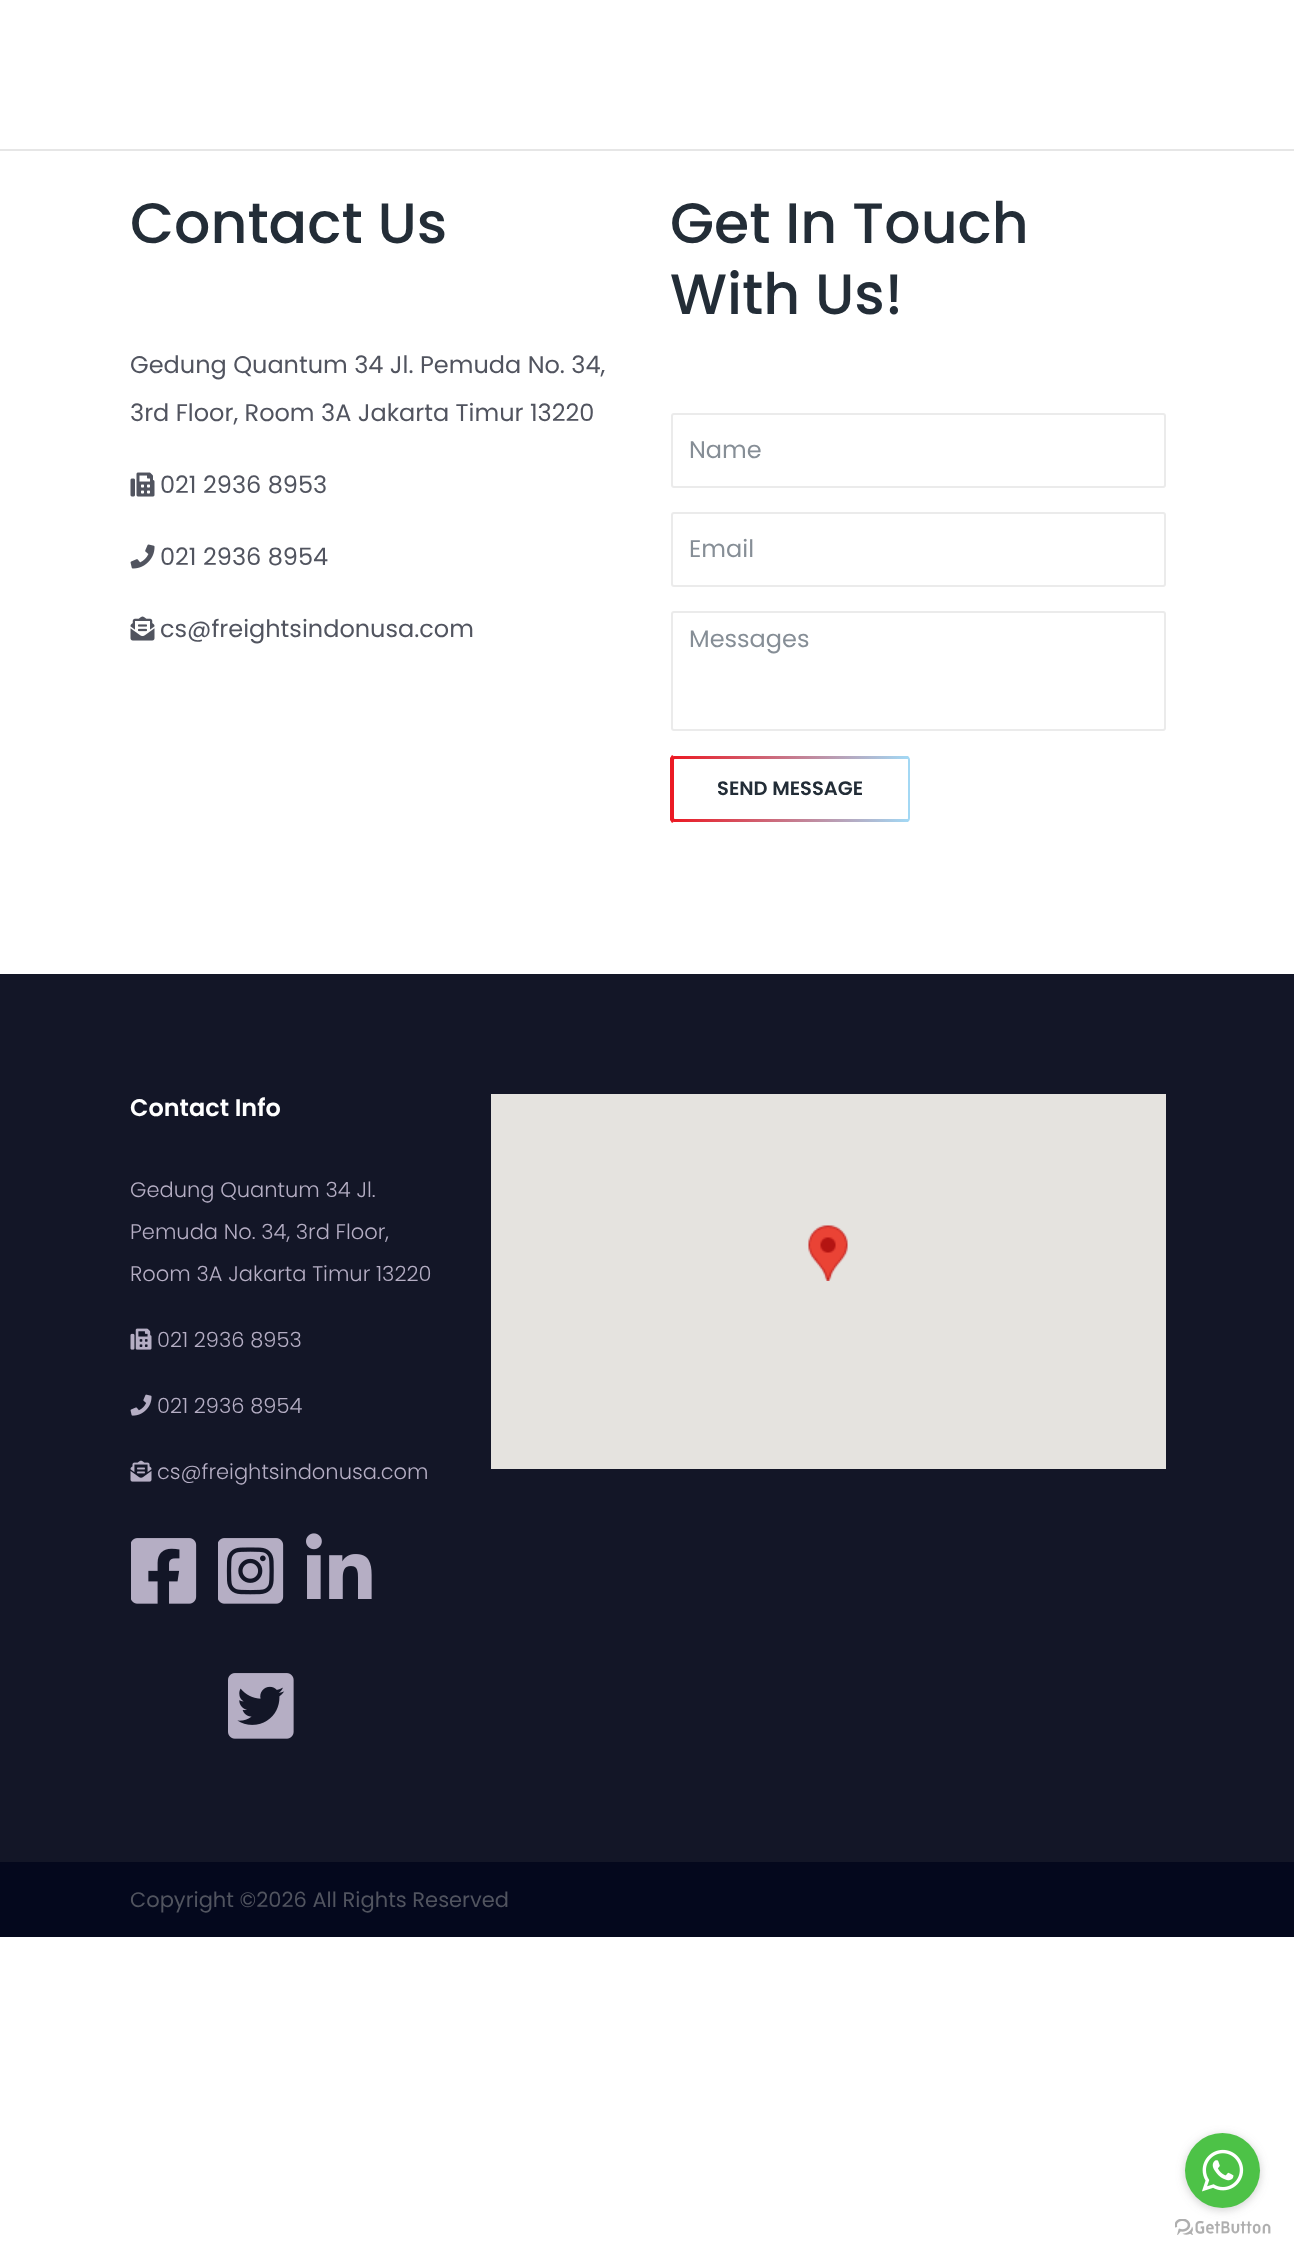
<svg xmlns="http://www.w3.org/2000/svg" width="1294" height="2259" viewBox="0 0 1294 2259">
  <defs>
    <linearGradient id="g1" gradientUnits="userSpaceOnUse" x1="674" y1="821" x2="908" y2="821"><stop offset="0" stop-color="#eb1a24"/><stop offset="1" stop-color="#a3d8f4"/></linearGradient>
    <linearGradient id="g2" gradientUnits="userSpaceOnUse" x1="674" y1="758" x2="908" y2="758"><stop offset="0" stop-color="#eb1a24"/><stop offset="1" stop-color="#a3d8f4"/></linearGradient>
    <filter id="blur1" x="-50%" y="-200%" width="200%" height="500%"><feGaussianBlur stdDeviation="5"/></filter>
  </defs>
  <rect width="100%" height="100%" fill="#ffffff"/>
  <rect x="0" y="149" width="1294" height="2" fill="#e6e6e6"/>
  <text x="130" y="243" font-family="Poppins" font-size="57" font-weight="500" fill="#232d37">Contact Us</text>
  <text x="130" y="373" font-family="Poppins" font-size="24" fill="#51545f">Gedung Quantum 34 Jl. Pemuda No. 34,</text>
  <text x="130" y="421" font-family="Poppins" font-size="24" fill="#51545f">3rd Floor, Room 3A Jakarta Timur 13220</text>
  <image x="130" y="472" width="25" height="25" href="img1.png"/>
  <text x="160" y="493" font-family="Poppins" font-size="24" fill="#51545f">021 2936 8953</text>
  <image x="130" y="544" width="25" height="25" href="img2.png"/>
  <text x="160" y="565" font-family="Poppins" font-size="24" fill="#51545f">021 2936 8954</text>
  <image x="130" y="616" width="25" height="25" href="img3.png"/>
  <text x="160" y="637" font-family="Poppins" font-size="24" fill="#51545f">cs@freightsindonusa.com</text>
  <text x="670" y="243" font-family="Poppins" font-size="57" font-weight="500" fill="#232d37">Get In Touch</text>
  <text x="670" y="314" font-family="Poppins" font-size="57" font-weight="500" fill="#232d37">With Us!</text>
  <rect x="672" y="414" width="493" height="73" rx="2" fill="none" stroke="#ebebeb" stroke-width="2"/>
  <text x="689" y="458" font-family="Poppins" font-size="24" fill="#868e96">Name</text>
  <rect x="672" y="513" width="493" height="73" rx="2" fill="none" stroke="#ebebeb" stroke-width="2"/>
  <text x="689" y="557" font-family="Poppins" font-size="24" fill="#868e96">Email</text>
  <rect x="672" y="612" width="493" height="118" rx="2" fill="none" stroke="#ebebeb" stroke-width="2"/>
  <text x="689" y="647" font-family="Poppins" font-size="24" fill="#868e96">Messages</text>
  <rect x="674" y="819" width="234" height="3" fill="url(#g1)"/>
  <rect x="674" y="756" width="234" height="3" fill="url(#g2)"/>
  <path d="M908 756C909 757 910 758 910 760V818C910 820 909 821 908 822L906 821C907 821 908 819 908 818V760C908 759 907 757 906 757Z" fill="#a3d8f4"/>
  <path d="M670 758L672 755L675 757L674 760V818L675 821L672 823L670 820Z" fill="#eb1a24"/>
  <text x="717" y="795" font-family="Poppins" font-size="19.5" font-weight="600" fill="#232d37">SEND MESSAGE</text>
  <rect x="0" y="974" width="1294" height="888" fill="#131627"/>
  <text x="130" y="1116" font-family="Poppins" font-size="24" font-weight="600" fill="#ffffff">Contact Info</text>
  <text x="130" y="1197" font-family="Poppins" font-size="21" font-weight="300" fill="#b5aec4">Gedung Quantum 34 Jl.</text>
  <text x="130" y="1239" font-family="Poppins" font-size="21" font-weight="300" fill="#b5aec4">Pemuda No. 34, 3rd Floor,</text>
  <text x="130" y="1281" font-family="Poppins" font-size="21" font-weight="300" fill="#b5aec4">Room 3A Jakarta Timur 13220</text>
  <image x="130" y="1328" width="22" height="22" href="img4.png"/>
  <text x="157" y="1347" font-family="Poppins" font-size="21" font-weight="300" fill="#b5aec4">021 2936 8953</text>
  <image x="130" y="1394" width="22" height="22" href="img5.png"/>
  <text x="157" y="1413" font-family="Poppins" font-size="21" font-weight="300" fill="#b5aec4">021 2936 8954</text>
  <image x="130" y="1460" width="22" height="22" href="img6.png"/>
  <text x="157" y="1479" font-family="Poppins" font-size="21" font-weight="300" fill="#b5aec4">cs@freightsindonusa.com</text>
  <image x="131" y="1538" width="66" height="66" href="img7.png"/>
  <image x="218" y="1538" width="66" height="66" href="img8.png"/>
  <image x="306" y="1533" width="66" height="66" href="img9.png"/>
  <image x="228" y="1673" width="66" height="66" href="img10.png"/>
  <rect x="491" y="1094" width="675" height="375" fill="#e5e3df"/>
  <image x="808" y="1225" width="40" height="56" href="img11.png"/>
  <rect x="0" y="1862" width="1294" height="75" fill="#04081d"/>
  <text x="130" y="1907" font-family="Poppins" font-size="21" fill="#51545f">Copyright ©2026 All Rights Reserved</text>
  <image x="1175" y="2219" width="96" height="16" href="img13.png"/>
  <rect x="1185" y="2135" width="75" height="75" rx="37.5" fill="#888888" fill-opacity="0.4" filter="url(#blur1)"/>
  <circle cx="1222.5" cy="2170.5" r="37.5" fill="#4dc247"/>
  <image x="1202" y="2149" width="42" height="43" href="img12.png"/>
</svg>
